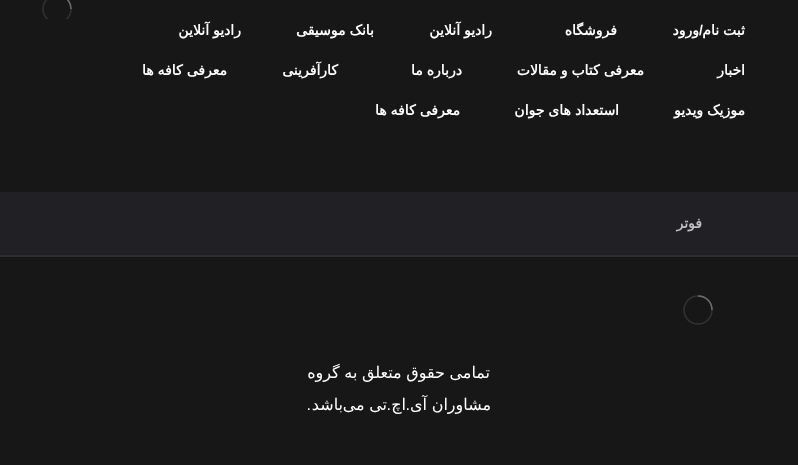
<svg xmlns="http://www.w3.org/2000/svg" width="798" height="465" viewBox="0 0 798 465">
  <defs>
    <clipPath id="clip1"><rect x="42" y="0" width="30" height="19"/></clipPath>
  </defs>
  <rect width="100%" height="100%" fill="#171717"/>
  <g clip-path="url(#clip1)">
    <circle cx="57" cy="9" r="14" fill="none" stroke="#313131" stroke-width="1.6"/>
  </g>
  <path d="M71 9C71 1 65-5 57-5" fill="none" stroke="#6d6d6d" stroke-width="1.6"/>
  <text x="745" y="35" word-spacing="-0.5" font-family="DejaVu Sans" font-size="14" font-weight="bold" direction="rtl" fill="#ffffff">ثبت نام</text>
  <text x="703" y="35" font-family="Liberation Sans" font-size="14" font-weight="bold" direction="rtl" fill="#ffffff">/</text>
  <text x="699" y="35" font-family="DejaVu Sans" font-size="14" font-weight="bold" direction="rtl" fill="#ffffff">ورود</text>
  <text x="617" y="35" font-family="DejaVu Sans" font-size="14" font-weight="bold" direction="rtl" fill="#ffffff">فروشگاه</text>
  <text x="492" y="35" word-spacing="-0.5" font-family="DejaVu Sans" font-size="14" font-weight="bold" direction="rtl" fill="#ffffff">رادیو آنلاین</text>
  <text x="374" y="35" word-spacing="-0.5" font-family="DejaVu Sans" font-size="14" font-weight="bold" direction="rtl" fill="#ffffff">بانک موسیقی</text>
  <text x="241" y="35" word-spacing="-0.5" font-family="DejaVu Sans" font-size="14" font-weight="bold" direction="rtl" fill="#ffffff">رادیو آنلاین</text>
  <text x="745" y="75" font-family="DejaVu Sans" font-size="14" font-weight="bold" direction="rtl" fill="#ffffff">اخبار</text>
  <text x="644" y="75" word-spacing="-0.5" font-family="DejaVu Sans" font-size="14" font-weight="bold" direction="rtl" fill="#ffffff">معرفی کتاب و مقالات</text>
  <text x="462" y="75" word-spacing="-0.5" font-family="DejaVu Sans" font-size="14" font-weight="bold" direction="rtl" fill="#ffffff">درباره ما</text>
  <text x="338" y="75" font-family="DejaVu Sans" font-size="14" font-weight="bold" direction="rtl" fill="#ffffff">کارآفرینی</text>
  <text x="227" y="75" word-spacing="-0.5" font-family="DejaVu Sans" font-size="14" font-weight="bold" direction="rtl" fill="#ffffff">معرفی کافه ها</text>
  <text x="745" y="115" word-spacing="-0.5" font-family="DejaVu Sans" font-size="14" font-weight="bold" direction="rtl" fill="#ffffff">موزیک ویدیو</text>
  <text x="619" y="115" word-spacing="-0.5" font-family="DejaVu Sans" font-size="14" font-weight="bold" direction="rtl" fill="#ffffff">استعداد های جوان</text>
  <text x="460" y="115" word-spacing="-0.5" font-family="DejaVu Sans" font-size="14" font-weight="bold" direction="rtl" fill="#ffffff">معرفی کافه ها</text>
  <rect x="0" y="192" width="798" height="63" fill="#212125"/>
  <rect x="0" y="255" width="798" height="1" fill="#2c2c30"/>
  <text x="702" y="228" font-family="DejaVu Sans" font-size="14" font-weight="bold" direction="rtl" fill="#c0c0c1">فوتر</text>
  <rect x="0" y="256" width="798" height="1" fill="#2c2c2c"/>
  <circle cx="698" cy="310" r="14" fill="none" stroke="#313131" stroke-width="1.6"/>
  <path d="M712 310C712 302 706 296 698 296" fill="none" stroke="#6d6d6d" stroke-width="1.6"/>
  <text x="490" y="378" word-spacing="-0.5" font-family="DejaVu Sans" font-size="16" direction="rtl" fill="#ffffff">تمامی حقوق متعلق به گروه</text>
  <text x="491" y="410" word-spacing="-0.5" font-family="DejaVu Sans" font-size="16" direction="rtl" fill="#ffffff">مشاوران آی</text>
  <text x="410" y="410" font-family="Liberation Sans" font-size="16" direction="rtl" fill="#ffffff">.</text>
  <text x="406" y="410" font-family="DejaVu Sans" font-size="16" direction="rtl" fill="#ffffff">اچ</text>
  <text x="391" y="410" font-family="Liberation Sans" font-size="16" direction="rtl" fill="#ffffff">.</text>
  <text x="387" y="410" word-spacing="-0.5" font-family="DejaVu Sans" font-size="16" direction="rtl" fill="#ffffff">تی می</text>
  <text x="343" y="410" font-family="DejaVu Sans" font-size="16" direction="rtl" fill="#ffffff">باشد</text>
  <text x="311" y="410" font-family="Liberation Sans" font-size="16" direction="rtl" fill="#ffffff">.</text>
</svg>
